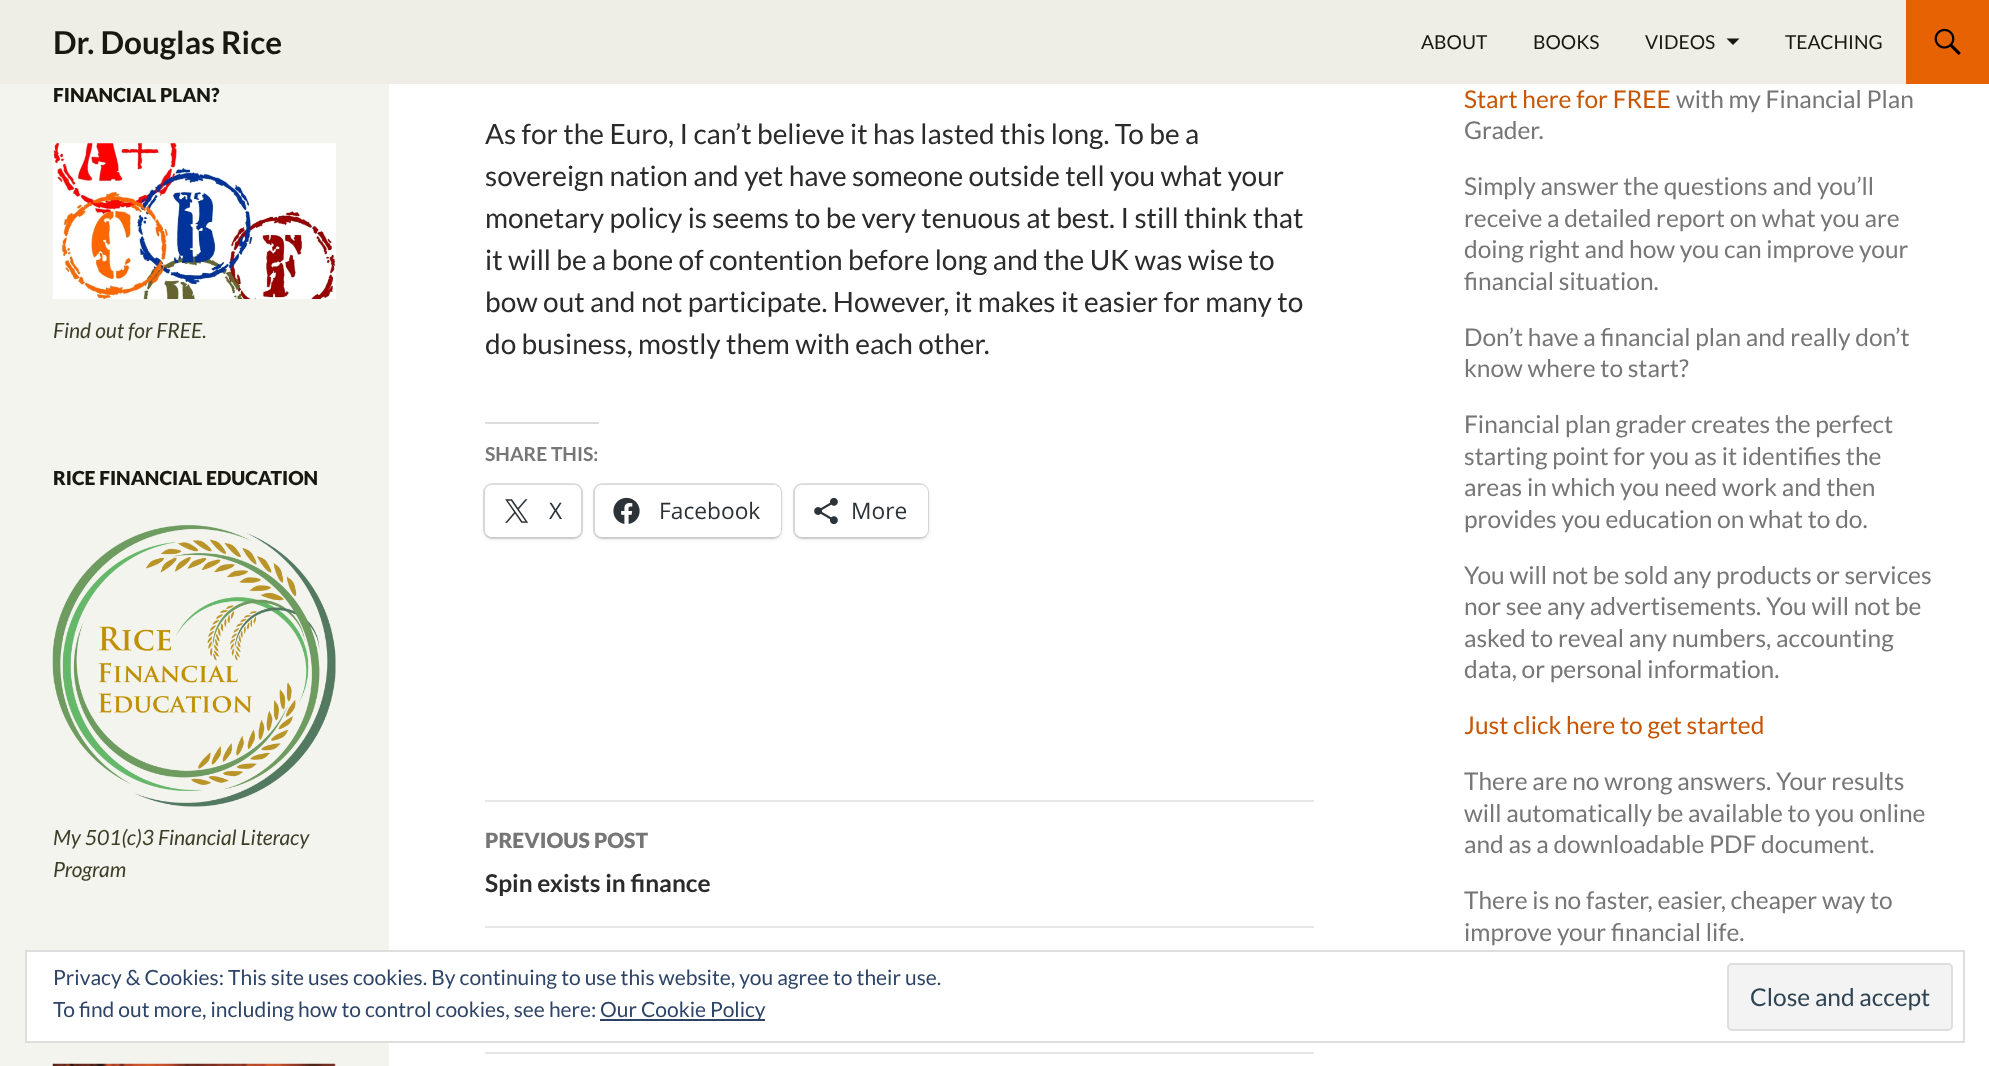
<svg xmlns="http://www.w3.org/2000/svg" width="1989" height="1066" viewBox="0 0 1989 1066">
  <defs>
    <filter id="blur1" x="-50%" y="-200%" width="200%" height="500%"><feGaussianBlur stdDeviation="2"/></filter>
  </defs>
  <rect width="100%" height="100%" fill="#ffffff"/>
  <rect x="0" y="0" width="1906" height="84" fill="#eeeee6"/>
  <text x="53" y="54" font-family="Lato" font-size="31.5" font-weight="bold" fill="#181810">Dr. Douglas Rice</text>
  <text x="1421" y="49" font-family="Lato" font-size="19.25" fill="#181810">ABOUT</text>
  <text x="1533" y="49" font-family="Lato" font-size="19.25" fill="#181810">BOOKS</text>
  <text x="1645" y="49" font-family="Lato" font-size="19.25" fill="#181810">VIDEOS</text>
  <path d="M1726.5 38.5H1739.5L1733 45Z" fill="#181810"/>
  <text x="1785" y="49" font-family="Lato" font-size="19.25" fill="#181810">TEACHING</text>
  <rect x="1906" y="0" width="83" height="84" fill="#e76203"/>
  <image x="1934" y="28" width="27" height="27" href="img1.png"/>
  <rect x="0" y="84" width="389" height="982" fill="#f4f4ef"/>
  <text x="53" y="102" font-family="Lato" font-size="19.25" font-weight="900" fill="#181810">FINANCIAL PLAN?</text>
  <image x="52" y="143" width="284" height="156" href="img2.png"/>
  <text x="53" y="338" font-family="Lato" font-size="21" font-style="italic" fill="#3d3d28">Find out for FREE.</text>
  <text x="53" y="485" font-family="Lato" font-size="19.25" font-weight="900" fill="#181810">RICE FINANCIAL EDUCATION</text>
  <image x="52" y="524" width="284" height="283" href="img3.png"/>
  <text x="53" y="845" font-family="Lato" font-size="21" font-style="italic" fill="#3d3d28">My 501(c)3 Financial Literacy</text>
  <text x="53" y="877" font-family="Lato" font-size="21" font-style="italic" fill="#3d3d28">Program</text>
  <image x="52" y="1063" width="284" height="3" href="img4.png"/>
  <text x="485" y="144" font-family="Lato" font-size="28" fill="#2b2b2b">As for the Euro, I can’t believe it has lasted this long. To be a</text>
  <text x="485" y="186" font-family="Lato" font-size="28" fill="#2b2b2b">sovereign nation and yet have someone outside tell you what your</text>
  <text x="485" y="228" font-family="Lato" font-size="28" fill="#2b2b2b">monetary policy is seems to be very tenuous at best. I still think that</text>
  <text x="485" y="270" font-family="Lato" font-size="28" fill="#2b2b2b">it will be a bone of contention before long and the UK was wise to</text>
  <text x="485" y="312" font-family="Lato" font-size="28" fill="#2b2b2b">bow out and not participate. However, it makes it easier for many to</text>
  <text x="485" y="354" font-family="Lato" font-size="28" fill="#2b2b2b">do business, mostly them with each other.</text>
  <rect x="485" y="422" width="114" height="2" fill="#dcdcde"/>
  <text x="485" y="461" font-family="Lato" font-size="19.25" font-weight="bold" fill="#767676">SHARE THIS:</text>
  <rect x="484" y="484" width="98" height="54" rx="8" fill="none" stroke="#e0e0e0" stroke-width="2"/>
  <rect x="485" y="487" width="96" height="52" rx="7" fill="#000000" fill-opacity="0.12" filter="url(#blur1)"/>
  <rect x="485" y="485" width="96" height="52" rx="7" fill="#ffffff"/>
  <image x="505" y="499" width="24" height="24" href="img5.png"/>
  <text x="549" y="519" font-family="Open Sans" font-size="22.75" fill="#2c3338">X</text>
  <rect x="594" y="484" width="187" height="54" rx="8" fill="none" stroke="#e0e0e0" stroke-width="2"/>
  <rect x="595" y="487" width="186" height="52" rx="7" fill="#000000" fill-opacity="0.12" filter="url(#blur1)"/>
  <rect x="595" y="485" width="186" height="52" rx="7" fill="#ffffff"/>
  <image x="613" y="497" width="27" height="27" href="img6.png"/>
  <text x="659" y="519" font-family="Open Sans" font-size="22.75" fill="#2c3338">Facebook</text>
  <rect x="794" y="484" width="134" height="54" rx="8" fill="none" stroke="#e0e0e0" stroke-width="2"/>
  <rect x="795" y="487" width="133" height="52" rx="7" fill="#000000" fill-opacity="0.12" filter="url(#blur1)"/>
  <rect x="795" y="485" width="133" height="52" rx="7" fill="#ffffff"/>
  <image x="814" y="497" width="24" height="28" href="img7.png"/>
  <text x="851" y="519" font-family="Open Sans" font-size="22.75" fill="#2c3338">More</text>
  <rect x="485" y="800" width="829" height="2" fill="#e6e6e6"/>
  <rect x="485" y="926" width="829" height="2" fill="#e6e6e6"/>
  <text x="485" y="848" font-family="Lato" font-size="21" font-weight="900" fill="#767676">PREVIOUS POST</text>
  <text x="485" y="892" font-family="Lato" font-size="24.5" font-weight="bold" fill="#2b2b2b">Spin exists in finance</text>
  <rect x="485" y="1052" width="829" height="2" fill="#e6e6e6"/>
  <text x="1464" y="108" font-family="Lato" font-size="24.5" fill="#c85503">Start here for FREE</text>
  <text x="1676" y="108" font-family="Lato" font-size="24.5" fill="#767676">with my Financial Plan</text>
  <text x="1464" y="139" font-family="Lato" font-size="24.5" fill="#767676">Grader.</text>
  <text x="1464" y="195" font-family="Lato" font-size="24.5" fill="#767676">Simply answer the questions and you’ll</text>
  <text x="1464" y="227" font-family="Lato" font-size="24.5" fill="#767676">receive a detailed report on what you are</text>
  <text x="1464" y="258" font-family="Lato" font-size="24.5" fill="#767676">doing right and how you can improve your</text>
  <text x="1464" y="290" font-family="Lato" font-size="24.5" fill="#767676">financial situation.</text>
  <text x="1464" y="346" font-family="Lato" font-size="24.5" fill="#767676">Don’t have a financial plan and really don’t</text>
  <text x="1464" y="377" font-family="Lato" font-size="24.5" fill="#767676">know where to start?</text>
  <text x="1464" y="433" font-family="Lato" font-size="24.5" fill="#767676">Financial plan grader creates the perfect</text>
  <text x="1464" y="465" font-family="Lato" font-size="24.5" fill="#767676">starting point for you as it identifies the</text>
  <text x="1464" y="496" font-family="Lato" font-size="24.5" fill="#767676">areas in which you need work and then</text>
  <text x="1464" y="528" font-family="Lato" font-size="24.5" fill="#767676">provides you education on what to do.</text>
  <text x="1464" y="584" font-family="Lato" font-size="24.5" fill="#767676">You will not be sold any products or services</text>
  <text x="1464" y="615" font-family="Lato" font-size="24.5" fill="#767676">nor see any advertisements. You will not be</text>
  <text x="1464" y="647" font-family="Lato" font-size="24.5" fill="#767676">asked to reveal any numbers, accounting</text>
  <text x="1464" y="678" font-family="Lato" font-size="24.5" fill="#767676">data, or personal information.</text>
  <text x="1464" y="734" font-family="Lato" font-size="24.5" fill="#c85503">Just click here to get started</text>
  <text x="1464" y="790" font-family="Lato" font-size="24.5" fill="#767676">There are no wrong answers. Your results</text>
  <text x="1464" y="822" font-family="Lato" font-size="24.5" fill="#767676">will automatically be available to you online</text>
  <text x="1464" y="853" font-family="Lato" font-size="24.5" fill="#767676">and as a downloadable PDF document.</text>
  <text x="1464" y="909" font-family="Lato" font-size="24.5" fill="#767676">There is no faster, easier, cheaper way to</text>
  <text x="1464" y="941" font-family="Lato" font-size="24.5" fill="#767676">improve your financial life.</text>
  <rect x="27" y="952" width="362" height="89" fill="#ffffff"/>
  <rect x="26" y="951" width="1938" height="91" fill="none" stroke="#dedede" stroke-width="2"/>
  <text x="53" y="985" font-family="Lato" font-size="21" fill="#2e4467">Privacy &amp; Cookies: This site uses cookies. By continuing to use this website, you agree to their use.</text>
  <text x="53" y="1017" font-family="Lato" font-size="21" fill="#2e4467">To find out more, including how to control cookies, see here:</text>
  <rect x="600" y="1019" width="165" height="2" fill="#2e4467"/>
  <text x="600" y="1017" font-family="Lato" font-size="21" fill="#2e4467">Our Cookie Policy</text>
  <rect x="1728" y="964" width="224" height="66" rx="4" fill="#f3f3f3" stroke="#dedede" stroke-width="2"/>
  <text x="1750" y="1006" font-family="Lato" font-size="24.5" fill="#2e4453">Close and accept</text>
</svg>
